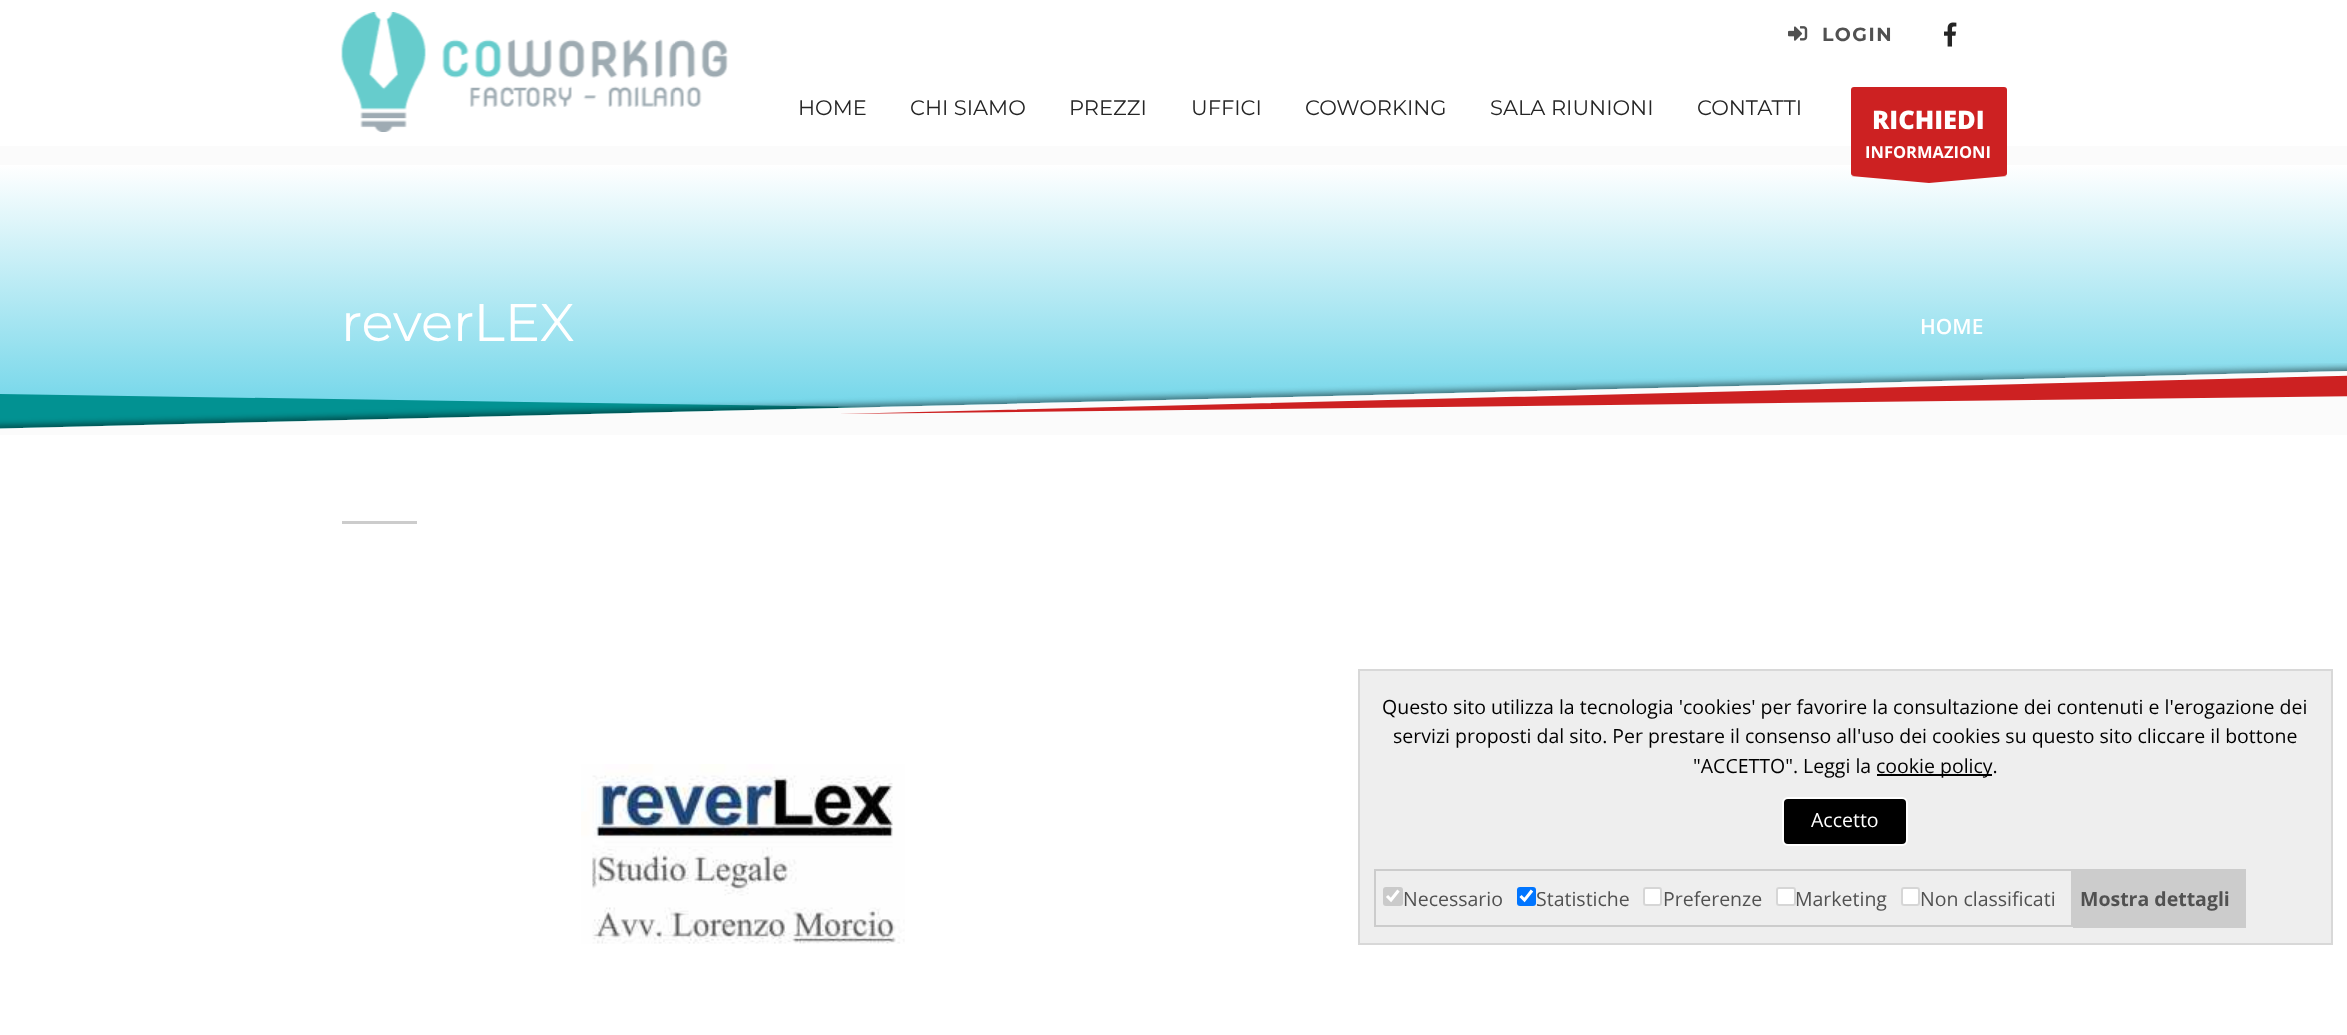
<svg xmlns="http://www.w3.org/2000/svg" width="2347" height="1035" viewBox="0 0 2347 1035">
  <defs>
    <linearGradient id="g1" gradientUnits="userSpaceOnUse" x1="1174" y1="435" x2="1174" y2="165"><stop offset="0" stop-color="#64d2e7"/><stop offset="1" stop-color="#ffffff"/></linearGradient>
  </defs>
  <rect width="100%" height="100%" fill="#fbfbfb"/>
  <rect x="0" y="0" width="2347" height="146" fill="#ffffff"/>
  <image x="341" y="12" width="387" height="120" href="img1.png"/>
  <image x="1788" y="26" width="20" height="15" href="img2.png"/>
  <text x="1822" y="41" font-family="Montserrat" font-size="19" font-weight="bold" letter-spacing="1.5" fill="#515151">LOGIN</text>
  <image x="1944" y="22" width="13" height="25" href="img3.png"/>
  <text x="798" y="115" font-family="Montserrat" font-size="21" fill="#252525">HOME</text>
  <text x="910" y="115" font-family="Montserrat" font-size="21" fill="#252525">CHI SIAMO</text>
  <text x="1069" y="115" font-family="Montserrat" font-size="21" fill="#252525">PREZZI</text>
  <text x="1191" y="115" font-family="Montserrat" font-size="21" fill="#252525">UFFICI</text>
  <text x="1305" y="115" font-family="Montserrat" font-size="21" fill="#252525">COWORKING</text>
  <text x="1490" y="115" font-family="Montserrat" font-size="21" fill="#252525">SALA RIUNIONI</text>
  <text x="1697" y="115" font-family="Montserrat" font-size="21" fill="#252525">CONTATTI</text>
  <rect x="0" y="165" width="2347" height="243" fill="url(#g1)"/>
  <rect x="1851" y="87" width="156" height="89" rx="3" fill="#cd2122"/>
  <text x="1872" y="129" font-family="Open Sans" font-size="25.5" font-weight="800" fill="#ffffff">RICHIEDI</text>
  <text x="1865" y="158" font-family="Open Sans" font-size="16.5" font-weight="bold" fill="#ffffff">INFORMAZIONI</text>
  <path d="M2007 176L1929 183L1851 176Z" fill="#cd2122"/>
  <text x="341" y="341" font-family="Montserrat" font-size="53" fill="#ffffff">reverLEX</text>
  <text x="1920" y="334" font-family="Open Sans" font-size="21" font-weight="600" fill="#ffffff">HOME</text>
  <image x="0" y="363" width="2347" height="72" href="img4.png"/>
  <rect x="0" y="435" width="2347" height="600" fill="#ffffff"/>
  <rect x="342" y="521" width="75" height="3" fill="#cccccc"/>
  <image x="581" y="764" width="324" height="180" href="img5.png"/>
  <rect x="1359" y="670" width="973" height="274" fill="#eeeeee" stroke="#d8d8d8" stroke-width="2"/>
  <text x="1382" y="714" font-family="Open Sans" font-size="19.5" fill="#000000">Questo sito utilizza la tecnologia 'cookies' per favorire la consultazione dei contenuti e l'erogazione dei</text>
  <text x="1393" y="743" font-family="Open Sans" font-size="19.5" fill="#000000">servizi proposti dal sito. Per prestare il consenso all'uso dei cookies su questo sito cliccare il bottone</text>
  <text x="1693" y="773" font-family="Open Sans" font-size="19.5" fill="#000000">"ACCETTO". Leggi la</text>
  <rect x="1877" y="774" width="115" height="2" fill="#000000"/>
  <text x="1876" y="773" font-family="Open Sans" font-size="19.5" fill="#000000">cookie policy.</text>
  <rect x="1783" y="798" width="124" height="47" rx="5" fill="#000000" stroke="#ffffff" stroke-width="2"/>
  <text x="1811" y="827" font-family="Open Sans" font-size="19.5" fill="#ffffff">Accetto</text>
  <rect x="1375" y="870" width="697" height="56" fill="none" stroke="#cccccc" stroke-width="2"/>
  <rect x="1383" y="887" width="20" height="19" rx="3" fill="#cacaca"/>
  <path d="M1387 896L1391 900L1398.5 890.5" fill="none" stroke="#ffffff" stroke-width="3.1"/>
  <text x="1403" y="906" font-family="Open Sans" font-size="19.5" fill="#515151">Necessario</text>
  <rect x="1517" y="887" width="19" height="19" rx="3" fill="#0075ff"/>
  <path d="M1520.5 896L1524.5 900L1532 890.5" fill="none" stroke="#ffffff" stroke-width="3.1"/>
  <text x="1536" y="906" font-family="Open Sans" font-size="19.5" fill="#515151">Statistiche</text>
  <rect x="1643" y="887" width="19" height="19" rx="3" fill="#ffffff"/>
  <rect x="1644" y="888" width="17" height="17" rx="2" fill="none" stroke="#767676" stroke-opacity="0.3" stroke-width="2"/>
  <text x="1663" y="906" font-family="Open Sans" font-size="19.5" fill="#515151">Preferenze</text>
  <rect x="1776" y="887" width="20" height="19" rx="3" fill="#ffffff"/>
  <rect x="1777" y="888" width="18" height="17" rx="2" fill="none" stroke="#767676" stroke-opacity="0.3" stroke-width="2"/>
  <text x="1795" y="906" font-family="Open Sans" font-size="19.5" fill="#515151">Marketing</text>
  <rect x="1901" y="887" width="19" height="19" rx="3" fill="#ffffff"/>
  <rect x="1902" y="888" width="17" height="17" rx="2" fill="none" stroke="#767676" stroke-opacity="0.3" stroke-width="2"/>
  <text x="1920" y="906" font-family="Open Sans" font-size="19.5" fill="#515151">Non classificati</text>
  <rect x="2073" y="869" width="173" height="59" fill="#cccccc"/>
  <text x="2080" y="906" font-family="Open Sans" font-size="19.5" font-weight="bold" fill="#515151">Mostra dettagli</text>
</svg>
